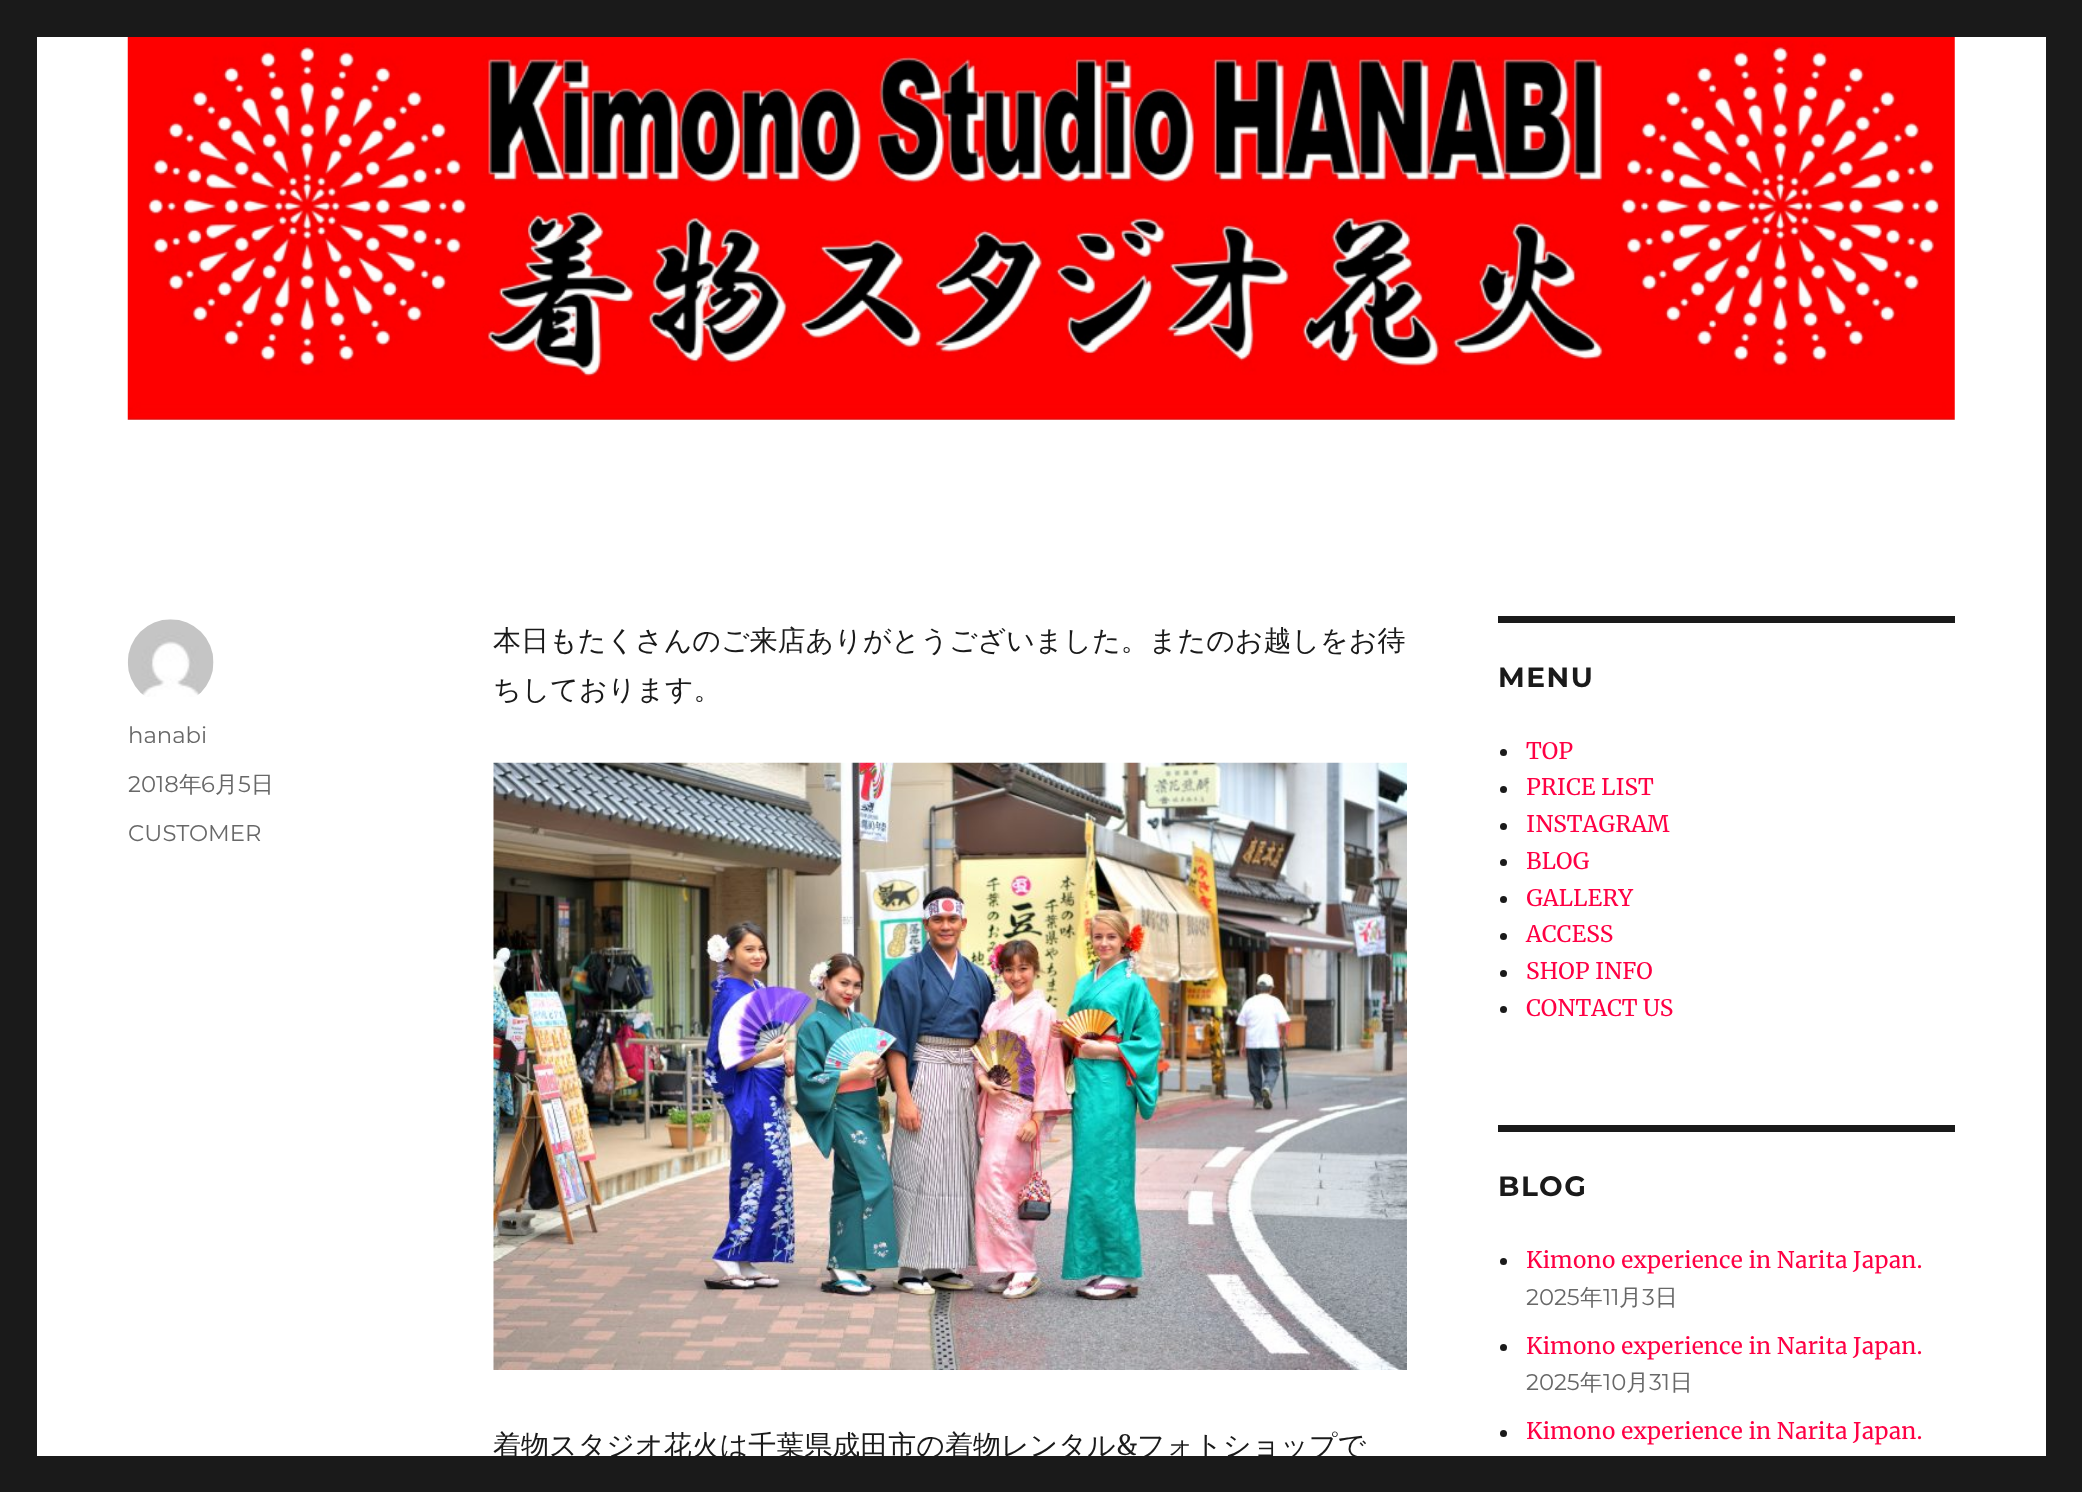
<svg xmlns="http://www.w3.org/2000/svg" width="2082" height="1492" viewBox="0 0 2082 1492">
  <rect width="100%" height="100%" fill="#1a1a1a"/>
  <rect x="37" y="37" width="2009" height="1419" fill="#ffffff"/>
  <image x="127" y="37" width="1828" height="383" href="img1.png"/>
  <image x="127" y="619" width="87" height="78" href="img2.png"/>
  <text x="128" y="743" font-family="'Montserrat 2'" font-size="22.75" font-weight="100" fill="#686868">hanabi</text>
  <text x="128" y="792" font-family="'Montserrat 2'" font-size="22.75" font-weight="100" fill="#686868">2018</text>
  <text x="179" y="792" font-family="WenQuanYi Zen Hei" font-size="22.75" font-weight="500" fill="#686868">年</text>
  <text x="201" y="792" font-family="'Montserrat 2'" font-size="22.75" font-weight="100" fill="#686868">6</text>
  <text x="215" y="792" font-family="WenQuanYi Zen Hei" font-size="22.75" font-weight="500" fill="#686868">月</text>
  <text x="238" y="792" font-family="'Montserrat 2'" font-size="22.75" font-weight="100" fill="#686868">5</text>
  <text x="251" y="792" font-family="WenQuanYi Zen Hei" font-size="22.75" font-weight="500" fill="#686868">日</text>
  <text x="128" y="841" font-family="'Montserrat 2'" font-size="22.75" font-weight="100" fill="#686868">CUSTOMER</text>
  <text x="493" y="650" font-family="WenQuanYi Zen Hei" font-size="28" font-weight="500" fill="#1a1a1a">本日もたくさんのご来店ありがとうございました。またのお越しをお待</text>
  <text x="493" y="699" font-family="WenQuanYi Zen Hei" font-size="28" font-weight="500" fill="#1a1a1a">ちしております。</text>
  <image x="493" y="762" width="914" height="608" href="img3.png"/>
  <text x="493" y="1455" font-family="WenQuanYi Zen Hei" font-size="28" font-weight="500" fill="#1a1a1a">着物スタジオ花火は千葉県成田市の着物レンタル</text>
  <text x="1116" y="1455" font-family="Merriweather" font-size="28" fill="#1a1a1a">&amp;</text>
  <text x="1137" y="1455" font-family="WenQuanYi Zen Hei" font-size="28" font-weight="500" fill="#1a1a1a">フォトショップで</text>
  <rect x="1498" y="616" width="457" height="7" fill="#1a1a1a"/>
  <text x="1498" y="687" font-family="Montserrat" font-size="28" font-weight="100" letter-spacing="1.5" fill="#1a1a1a">MENU</text>
  <circle cx="1503.5" cy="752.5" r="3.5" fill="#1a1a1a"/>
  <text x="1526" y="759" font-family="Merriweather" font-size="22.75" fill="#ff0044">TOP</text>
  <circle cx="1503.5" cy="789.5" r="3.5" fill="#1a1a1a"/>
  <text x="1526" y="795" font-family="Merriweather" font-size="22.75" fill="#ff0044">PRICE LIST</text>
  <circle cx="1503.5" cy="826.5" r="3.5" fill="#1a1a1a"/>
  <text x="1526" y="832" font-family="Merriweather" font-size="22.75" fill="#ff0044">INSTAGRAM</text>
  <circle cx="1503.5" cy="862.5" r="3.5" fill="#1a1a1a"/>
  <text x="1526" y="869" font-family="Merriweather" font-size="22.75" fill="#ff0044">BLOG</text>
  <circle cx="1503.5" cy="899.5" r="3.5" fill="#1a1a1a"/>
  <text x="1526" y="906" font-family="Merriweather" font-size="22.75" fill="#ff0044">GALLERY</text>
  <circle cx="1503.5" cy="936.5" r="3.5" fill="#1a1a1a"/>
  <text x="1526" y="942" font-family="Merriweather" font-size="22.75" fill="#ff0044">ACCESS</text>
  <circle cx="1503.5" cy="973.5" r="3.5" fill="#1a1a1a"/>
  <text x="1526" y="979" font-family="Merriweather" font-size="22.75" fill="#ff0044">SHOP INFO</text>
  <circle cx="1503.5" cy="1009.5" r="3.5" fill="#1a1a1a"/>
  <text x="1526" y="1016" font-family="Merriweather" font-size="22.75" fill="#ff0044">CONTACT US</text>
  <rect x="1498" y="1125" width="457" height="7" fill="#1a1a1a"/>
  <text x="1498" y="1196" font-family="Montserrat" font-size="28" font-weight="100" letter-spacing="1.5" fill="#1a1a1a">BLOG</text>
  <circle cx="1503.5" cy="1261.5" r="3.5" fill="#1a1a1a"/>
  <text x="1526" y="1268" font-family="Merriweather" font-size="22.75" fill="#ff0044">Kimono experience in Narita Japan.</text>
  <text x="1526" y="1305" font-family="'Montserrat 2'" font-size="22.75" font-weight="100" fill="#686868">2025</text>
  <text x="1580" y="1305" font-family="WenQuanYi Zen Hei" font-size="22.75" font-weight="500" fill="#686868">年</text>
  <text x="1603" y="1305" font-family="'Montserrat 2'" font-size="22.75" font-weight="100" fill="#686868">11</text>
  <text x="1619" y="1305" font-family="WenQuanYi Zen Hei" font-size="22.75" font-weight="500" fill="#686868">月</text>
  <text x="1642" y="1305" font-family="'Montserrat 2'" font-size="22.75" font-weight="100" fill="#686868">3</text>
  <text x="1655" y="1305" font-family="WenQuanYi Zen Hei" font-size="22.75" font-weight="500" fill="#686868">日</text>
  <circle cx="1503.5" cy="1347.5" r="3.5" fill="#1a1a1a"/>
  <text x="1526" y="1354" font-family="Merriweather" font-size="22.75" fill="#ff0044">Kimono experience in Narita Japan.</text>
  <text x="1526" y="1390" font-family="'Montserrat 2'" font-size="22.75" font-weight="100" fill="#686868">2025</text>
  <text x="1580" y="1390" font-family="WenQuanYi Zen Hei" font-size="22.75" font-weight="500" fill="#686868">年</text>
  <text x="1603" y="1390" font-family="'Montserrat 2'" font-size="22.75" font-weight="100" fill="#686868">10</text>
  <text x="1626" y="1390" font-family="WenQuanYi Zen Hei" font-size="22.75" font-weight="500" fill="#686868">月</text>
  <text x="1649" y="1390" font-family="'Montserrat 2'" font-size="22.75" font-weight="100" fill="#686868">31</text>
  <text x="1670" y="1390" font-family="WenQuanYi Zen Hei" font-size="22.75" font-weight="500" fill="#686868">日</text>
  <circle cx="1503.5" cy="1433.5" r="3.5" fill="#1a1a1a"/>
  <text x="1526" y="1439" font-family="Merriweather" font-size="22.75" fill="#ff0044">Kimono experience in Narita Japan.</text>
</svg>
